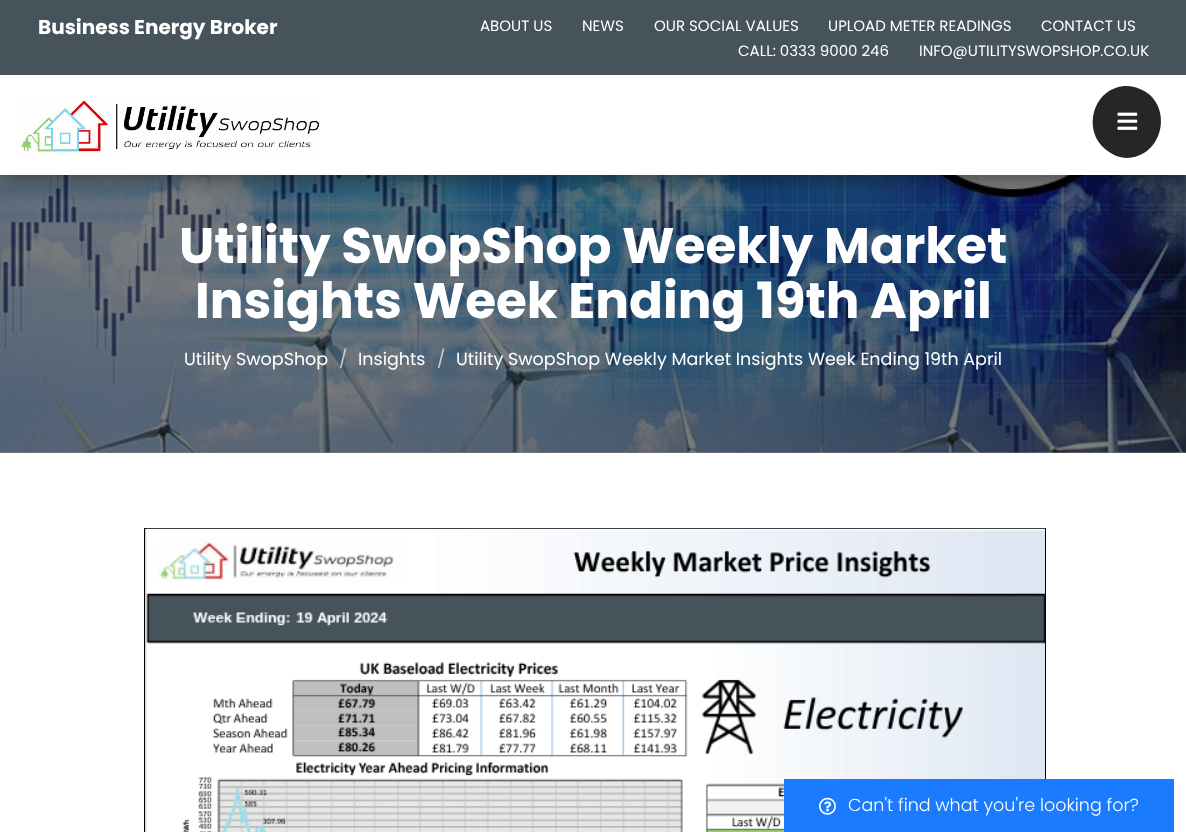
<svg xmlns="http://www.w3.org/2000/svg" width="1186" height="832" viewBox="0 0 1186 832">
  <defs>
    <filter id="blur1" x="-50%" y="-200%" width="200%" height="500%"><feGaussianBlur stdDeviation="12.5"/></filter>
  </defs>
  <rect width="100%" height="100%" fill="#ffffff"/>
  <rect x="0" y="452" width="1186" height="1" fill="#808080"/>
  <image x="0" y="175" width="1186" height="278" href="img3.png"/>
  <rect x="0" y="0" width="1186" height="175" fill="#000000" fill-opacity="0.58" filter="url(#blur1)"/>
  <rect x="0" y="75" width="1186" height="100" fill="#ffffff"/>
  <rect x="0" y="0" width="1186" height="75" fill="#46535b"/>
  <text x="38" y="34" font-family="Poppins" font-size="20" font-weight="bold" fill="#ffffff">Business Energy Broker</text>
  <text x="480" y="31" font-family="Poppins" font-size="15" fill="#ffffff">ABOUT US</text>
  <text x="582" y="31" font-family="Poppins" font-size="15" fill="#ffffff">NEWS</text>
  <text x="654" y="31" font-family="Poppins" font-size="15" fill="#ffffff">OUR SOCIAL VALUES</text>
  <text x="828" y="31" font-family="Poppins" font-size="15" fill="#ffffff">UPLOAD METER READINGS</text>
  <text x="1041" y="31" font-family="Poppins" font-size="15" fill="#ffffff">CONTACT US</text>
  <text x="738" y="56" font-family="Poppins" font-size="15" fill="#ffffff">CALL: 0333 9000 246</text>
  <text x="919" y="56" font-family="Poppins" font-size="15" fill="#ffffff">INFO@UTILITYSWOPSHOP.CO.UK</text>
  <image x="19" y="98" width="301" height="57" href="img1.png"/>
  <path d="M1127 86C1135 86 1144 90 1150 95C1172 116 1159 157 1127 158C1119 158 1111 154 1105 149C1081 129 1094 86 1127 86Z" fill="#262626"/>
  <image x="1117" y="112" width="21" height="18" href="img2.png"/>
  <text x="179" y="263" font-family="Poppins" font-size="50" font-weight="bold" fill="#ffffff">Utility SwopShop Weekly Market</text>
  <text x="195" y="318" font-family="Poppins" font-size="50" font-weight="bold" fill="#ffffff">Insights Week Ending 19th April</text>
  <text x="184" y="365" font-family="Poppins" font-size="17.5" fill="#ffffff">Utility SwopShop</text>
  <text x="339" y="365" font-family="Poppins" font-size="17.5" fill="#cccccc">/</text>
  <text x="358" y="365" font-family="Poppins" font-size="17.5" fill="#ffffff">Insights</text>
  <text x="437" y="365" font-family="Poppins" font-size="17.5" fill="#cccccc">/</text>
  <text x="456" y="365" font-family="Poppins" font-size="17.5" fill="#ffffff">Utility SwopShop Weekly Market Insights Week Ending 19th April</text>
  <rect x="145" y="529" width="2" height="303" fill="#d3d3d3"/>
  <rect x="144.5" y="528.5" width="901" height="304" fill="none" stroke="#000000"/>
  <image x="146" y="528" width="899" height="304" href="img4.png"/>
  <rect x="784" y="779" width="390" height="53" fill="#1a7bff"/>
  <image x="819" y="797" width="17" height="18" href="img5.png"/>
  <text x="848" y="811" font-family="Poppins" font-size="17.5" font-weight="300" fill="#ffffff">Can't find what you're looking for?</text>
</svg>
